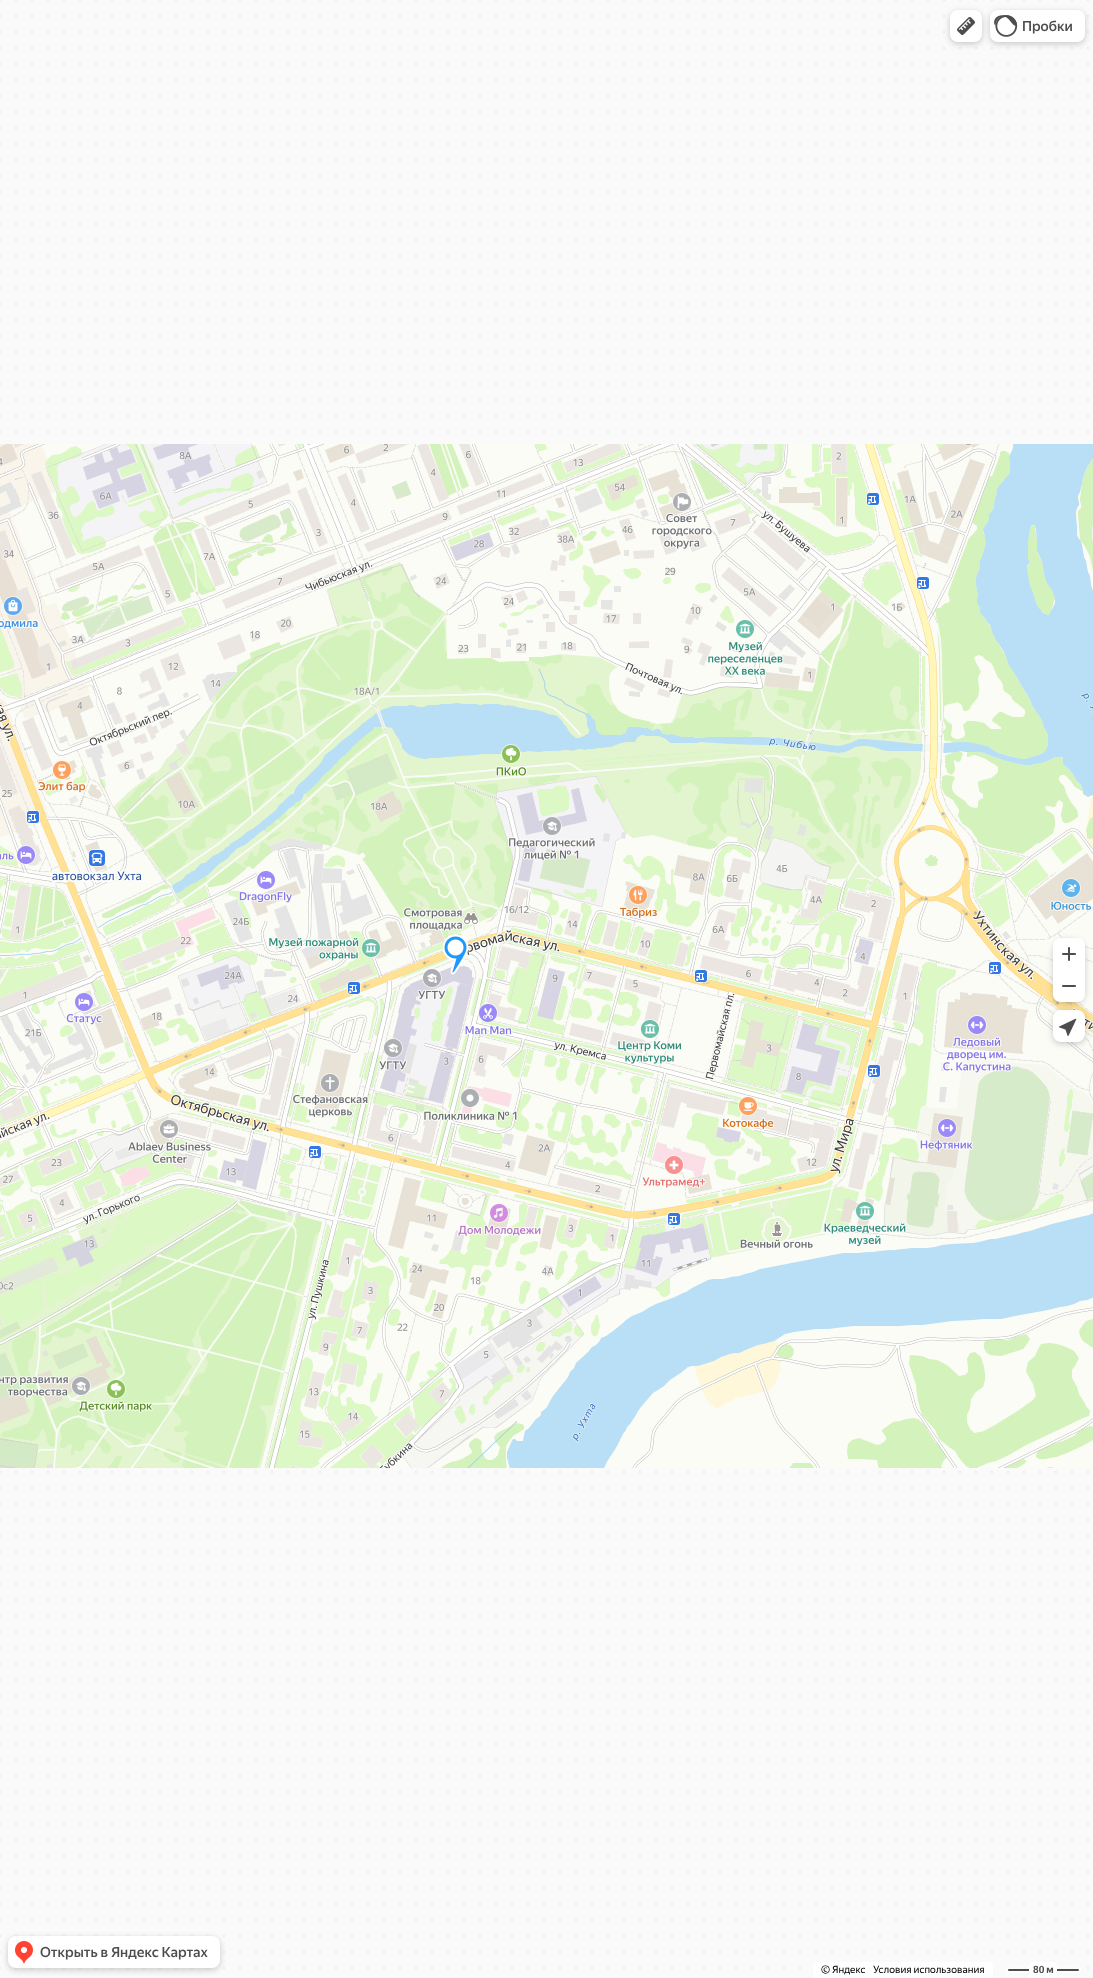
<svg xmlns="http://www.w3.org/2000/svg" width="1093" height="1978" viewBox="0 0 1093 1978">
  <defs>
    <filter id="blur1" x="-50%" y="-200%" width="200%" height="500%"><feGaussianBlur stdDeviation="3"/></filter>
  </defs>
  <rect width="100%" height="100%" fill="#ffffff"/>
  <image x="0" y="0" width="1093" height="1978" href="img1.png"/>
  <rect x="950" y="12" width="32" height="32" rx="8" fill="#000000" fill-opacity="0.2" filter="url(#blur1)"/>
  <rect x="950" y="10" width="32" height="32" rx="8" fill="#ffffff"/>
  <image x="957" y="17" width="18" height="18" href="img2.png"/>
  <rect x="990" y="12" width="95" height="32" rx="8" fill="#000000" fill-opacity="0.2" filter="url(#blur1)"/>
  <rect x="990" y="10" width="95" height="32" rx="8" fill="#ffffff"/>
  <image x="994" y="15" width="24" height="22" href="img3.png"/>
  <text x="1022" y="31" font-family="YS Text" font-size="14" font-weight="500" fill="#4d4d4d">Пробки</text>
  <image x="939" y="700" width="154" height="256" href="img17.png"/>
  <image x="939" y="956" width="154" height="256" href="img22.png"/>
  <rect x="1053" y="940" width="32" height="64" rx="12" fill="#000000" fill-opacity="0.2" filter="url(#blur1)"/>
  <path d="M1061 938H1077C1081.5 938 1085 941.5 1085 946V970H1053V946C1053 941.5 1056.5 938 1061 938Z" fill="#ffffff"/>
  <image x="1062" y="947" width="14" height="14" href="img4.png"/>
  <path d="M1053 970H1085V994C1085 998.5 1081.5 1002 1077 1002H1061C1056.5 1002 1053 998.5 1053 994Z" fill="#ffffff"/>
  <image x="1062" y="985" width="14" height="2" href="img5.png"/>
  <rect x="1053" y="1012" width="32" height="32" rx="8" fill="#000000" fill-opacity="0.2" filter="url(#blur1)"/>
  <rect x="1053" y="1010" width="32" height="32" rx="8" fill="#ffffff"/>
  <image x="1059" y="1018" width="18" height="18" href="img6.png"/>
  <rect x="8" y="1938" width="212" height="32" rx="8" fill="#000000" fill-opacity="0.2" filter="url(#blur1)"/>
  <rect x="8" y="1936" width="212" height="32" rx="8" fill="#ffffff"/>
  <image x="15" y="1941" width="18" height="23" href="img7.png"/>
  <text x="40" y="1957" font-family="YS Text" font-size="14" font-weight="500" fill="#4d4d4d">Открыть в Яндекс Картах</text>
  <path d="M817 1962H989C991 1962 993 1964 993 1966V1978H813V1966C813 1964 815 1962 817 1962Z" fill="#ffffff"/>
  <text x="821" y="1973" font-family="YS Text" font-size="10" fill="#000000">© Яндекс</text>
  <text x="873" y="1973" font-family="YS Text" font-size="10" fill="#000000">Условия использования</text>
  <rect x="1006" y="1967" width="75" height="6" rx="3" fill="#ffffff" fill-opacity="0.6"/>
  <rect x="1008" y="1969" width="71" height="2" rx="1" fill="#4d4d4d"/>
  <path d="M1033 1962H1053C1055 1962 1057 1964 1057 1966V1978H1029V1966C1029 1964 1031 1962 1033 1962Z" fill="#ffffff"/>
  <text x="1033" y="1973" font-family="YS Text" font-size="10" font-weight="bold" fill="#4d4d4d">80 м</text>
  <image x="0" y="444" width="171" height="256" href="img8.png"/>
  <image x="171" y="444" width="256" height="256" href="img9.png"/>
  <image x="427" y="444" width="256" height="256" href="img10.png"/>
  <image x="683" y="444" width="256" height="256" href="img11.png"/>
  <image x="939" y="444" width="154" height="256" href="img12.png"/>
  <image x="0" y="700" width="171" height="256" href="img13.png"/>
  <image x="171" y="700" width="256" height="256" href="img14.png"/>
  <image x="427" y="700" width="256" height="256" href="img15.png"/>
  <image x="683" y="700" width="256" height="256" href="img16.png"/>
  <image x="0" y="956" width="171" height="256" href="img18.png"/>
  <image x="171" y="956" width="256" height="256" href="img19.png"/>
  <image x="427" y="956" width="256" height="256" href="img20.png"/>
  <image x="683" y="956" width="256" height="256" href="img21.png"/>
  <image x="0" y="1212" width="171" height="256" href="img23.png"/>
  <image x="171" y="1212" width="256" height="256" href="img24.png"/>
  <image x="427" y="1212" width="256" height="256" href="img25.png"/>
  <image x="683" y="1212" width="256" height="256" href="img26.png"/>
  <image x="939" y="1212" width="154" height="256" href="img27.png"/>
  <image x="443" y="935" width="26" height="40" href="img28.png"/>
</svg>
